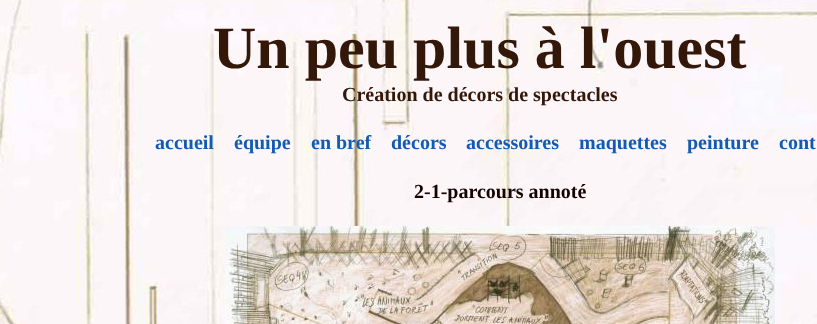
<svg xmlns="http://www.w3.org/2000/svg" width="817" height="324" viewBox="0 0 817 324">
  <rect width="100%" height="100%" fill="#ffffff"/>
  <image x="0" y="0" width="817" height="324" href="img1.png"/>
  <text x="213" y="68" font-family="Liberation Serif" font-size="60" font-weight="bold" fill="#331709">Un peu plus à l'ouest</text>
  <text x="342" y="101" font-family="Liberation Serif" font-size="20" font-weight="bold" fill="#331709">Création de décors de spectacles</text>
  <text x="155" y="149" font-family="Liberation Serif" font-size="20" font-weight="bold" fill="#135ab0">accueil</text>
  <text x="234" y="149" font-family="Liberation Serif" font-size="20" font-weight="bold" fill="#135ab0">équipe</text>
  <text x="311" y="149" font-family="Liberation Serif" font-size="20" font-weight="bold" fill="#135ab0">en bref</text>
  <text x="391" y="149" font-family="Liberation Serif" font-size="20" font-weight="bold" fill="#135ab0">décors</text>
  <text x="466" y="149" font-family="Liberation Serif" font-size="20" font-weight="bold" fill="#135ab0">accessoires</text>
  <text x="579" y="149" font-family="Liberation Serif" font-size="20" font-weight="bold" fill="#135ab0">maquettes</text>
  <text x="687" y="149" font-family="Liberation Serif" font-size="20" font-weight="bold" fill="#135ab0">peinture</text>
  <text x="779" y="149" font-family="Liberation Serif" font-size="20" font-weight="bold" fill="#135ab0">cont</text>
  <text x="414" y="198" font-family="Liberation Serif" font-size="20" font-weight="bold" fill="#140303">2-1-parcours annoté</text>
  <image x="225" y="226" width="550" height="98" href="img2.png"/>
</svg>
